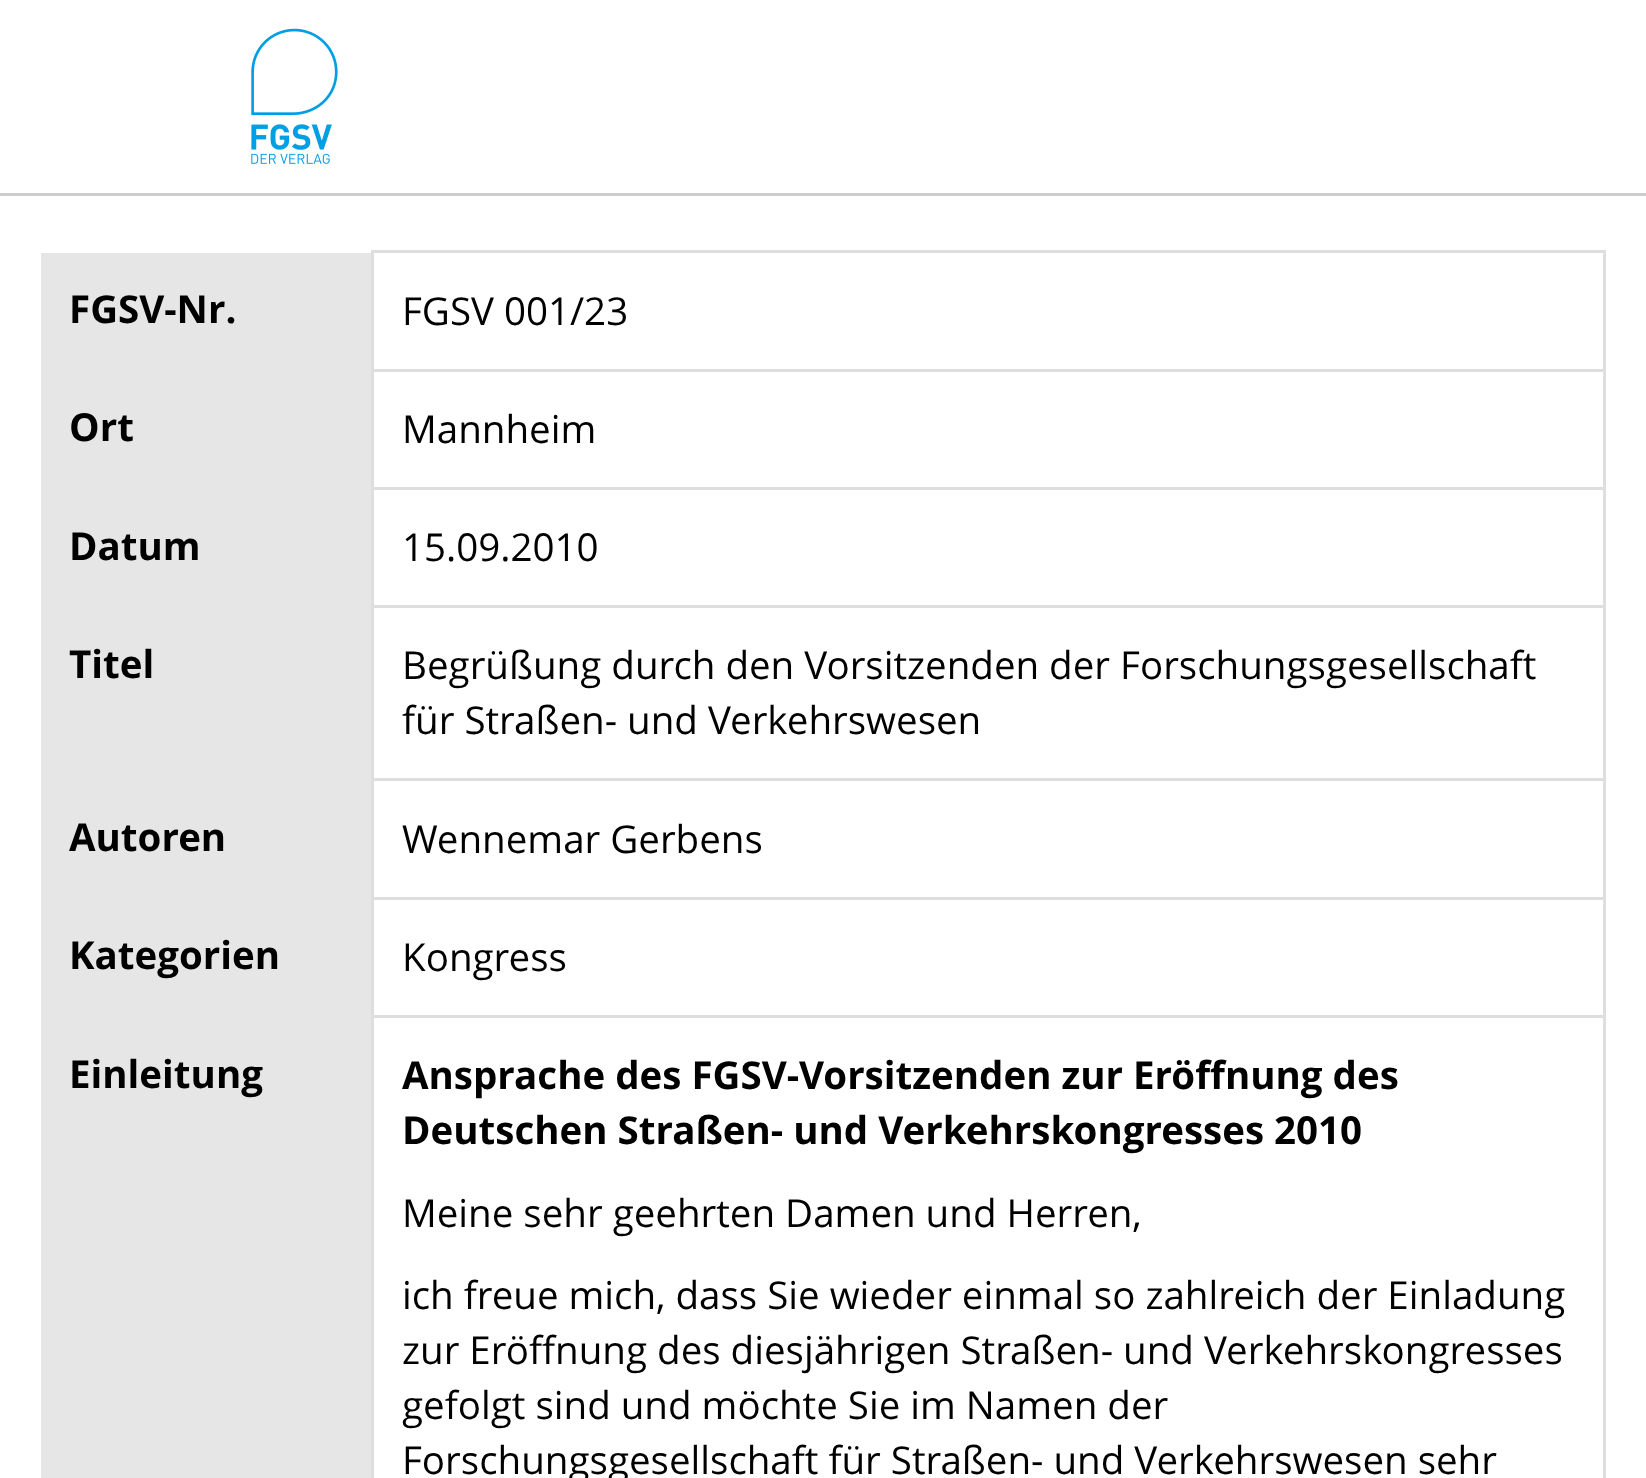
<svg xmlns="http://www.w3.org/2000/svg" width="1646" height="1478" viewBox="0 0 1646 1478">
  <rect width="100%" height="100%" fill="#ffffff"/>
  <rect x="0" y="193" width="1646" height="3" fill="#cccccc"/>
  <image x="251" y="28" width="87" height="136" href="img1.png"/>
  <rect x="41" y="253" width="330" height="1225" fill="#e6e6e6"/>
  <text x="69" y="323" font-family="Open Sans" font-size="38.5" font-weight="bold" fill="#000000">FGSV-Nr.</text>
  <rect x="371" y="250" width="1235" height="3" fill="#dedede"/>
  <rect x="371" y="369" width="1235" height="3" fill="#dedede"/>
  <rect x="371" y="487" width="1235" height="3" fill="#dedede"/>
  <rect x="371" y="605" width="1235" height="3" fill="#dedede"/>
  <rect x="371" y="778" width="1235" height="3" fill="#dedede"/>
  <rect x="371" y="897" width="1235" height="3" fill="#dedede"/>
  <rect x="371" y="1015" width="1235" height="3" fill="#dedede"/>
  <rect x="1603" y="1015" width="3" height="463" fill="#dedede"/>
  <rect x="1603" y="897" width="3" height="121" fill="#dedede"/>
  <rect x="1603" y="778" width="3" height="121" fill="#dedede"/>
  <rect x="1603" y="605" width="3" height="176" fill="#dedede"/>
  <rect x="1603" y="487" width="3" height="121" fill="#dedede"/>
  <rect x="1603" y="369" width="3" height="121" fill="#dedede"/>
  <rect x="1603" y="250" width="3" height="121" fill="#dedede"/>
  <rect x="371" y="1015" width="3" height="463" fill="#dedede"/>
  <rect x="371" y="897" width="3" height="121" fill="#dedede"/>
  <rect x="371" y="778" width="3" height="121" fill="#dedede"/>
  <rect x="371" y="605" width="3" height="176" fill="#dedede"/>
  <rect x="371" y="487" width="3" height="121" fill="#dedede"/>
  <rect x="371" y="369" width="3" height="121" fill="#dedede"/>
  <rect x="371" y="250" width="3" height="121" fill="#dedede"/>
  <text x="402" y="325" font-family="Open Sans" font-size="38.5" fill="#000000">FGSV 001/23</text>
  <text x="69" y="441" font-family="Open Sans" font-size="38.5" font-weight="bold" fill="#000000">Ort</text>
  <text x="402" y="443" font-family="Open Sans" font-size="38.5" fill="#000000">Mannheim</text>
  <text x="69" y="560" font-family="Open Sans" font-size="38.5" font-weight="bold" fill="#000000">Datum</text>
  <text x="402" y="561" font-family="Open Sans" font-size="38.5" fill="#000000">15.09.2010</text>
  <text x="69" y="678" font-family="Open Sans" font-size="38.5" font-weight="bold" fill="#000000">Titel</text>
  <text x="402" y="679" font-family="Open Sans" font-size="38.5" fill="#000000">Begrüßung durch den Vorsitzenden der Forschungsgesellschaft</text>
  <text x="402" y="734" font-family="Open Sans" font-size="38.5" fill="#000000">für Straßen- und Verkehrswesen</text>
  <text x="69" y="851" font-family="Open Sans" font-size="38.5" font-weight="bold" fill="#000000">Autoren</text>
  <text x="402" y="853" font-family="Open Sans" font-size="38.5" fill="#000000">Wennemar Gerbens</text>
  <text x="69" y="969" font-family="Open Sans" font-size="38.5" font-weight="bold" fill="#000000">Kategorien</text>
  <text x="402" y="971" font-family="Open Sans" font-size="38.5" fill="#000000">Kongress</text>
  <text x="69" y="1088" font-family="Open Sans" font-size="38.5" font-weight="bold" fill="#000000">Einleitung</text>
  <text x="402" y="1089" font-family="Open Sans" font-size="38.5" font-weight="bold" fill="#000000">Ansprache des FGSV-Vorsitzenden zur Eröffnung des</text>
  <text x="402" y="1144" font-family="Open Sans" font-size="38.5" font-weight="bold" fill="#000000">Deutschen Straßen- und Verkehrskongresses 2010</text>
  <text x="402" y="1227" font-family="Open Sans" font-size="38.5" fill="#000000">Meine sehr geehrten Damen und Herren,</text>
  <text x="402" y="1309" font-family="Open Sans" font-size="38.5" fill="#000000">ich freue mich, dass Sie wieder einmal so zahlreich der Einladung</text>
  <text x="402" y="1364" font-family="Open Sans" font-size="38.5" fill="#000000">zur Eröffnung des diesjährigen Straßen- und Verkehrskongresses</text>
  <text x="402" y="1419" font-family="Open Sans" font-size="38.5" fill="#000000">gefolgt sind und möchte Sie im Namen der</text>
  <text x="402" y="1474" font-family="Open Sans" font-size="38.5" fill="#000000">Forschungsgesellschaft für Straßen- und Verkehrswesen sehr</text>
</svg>
